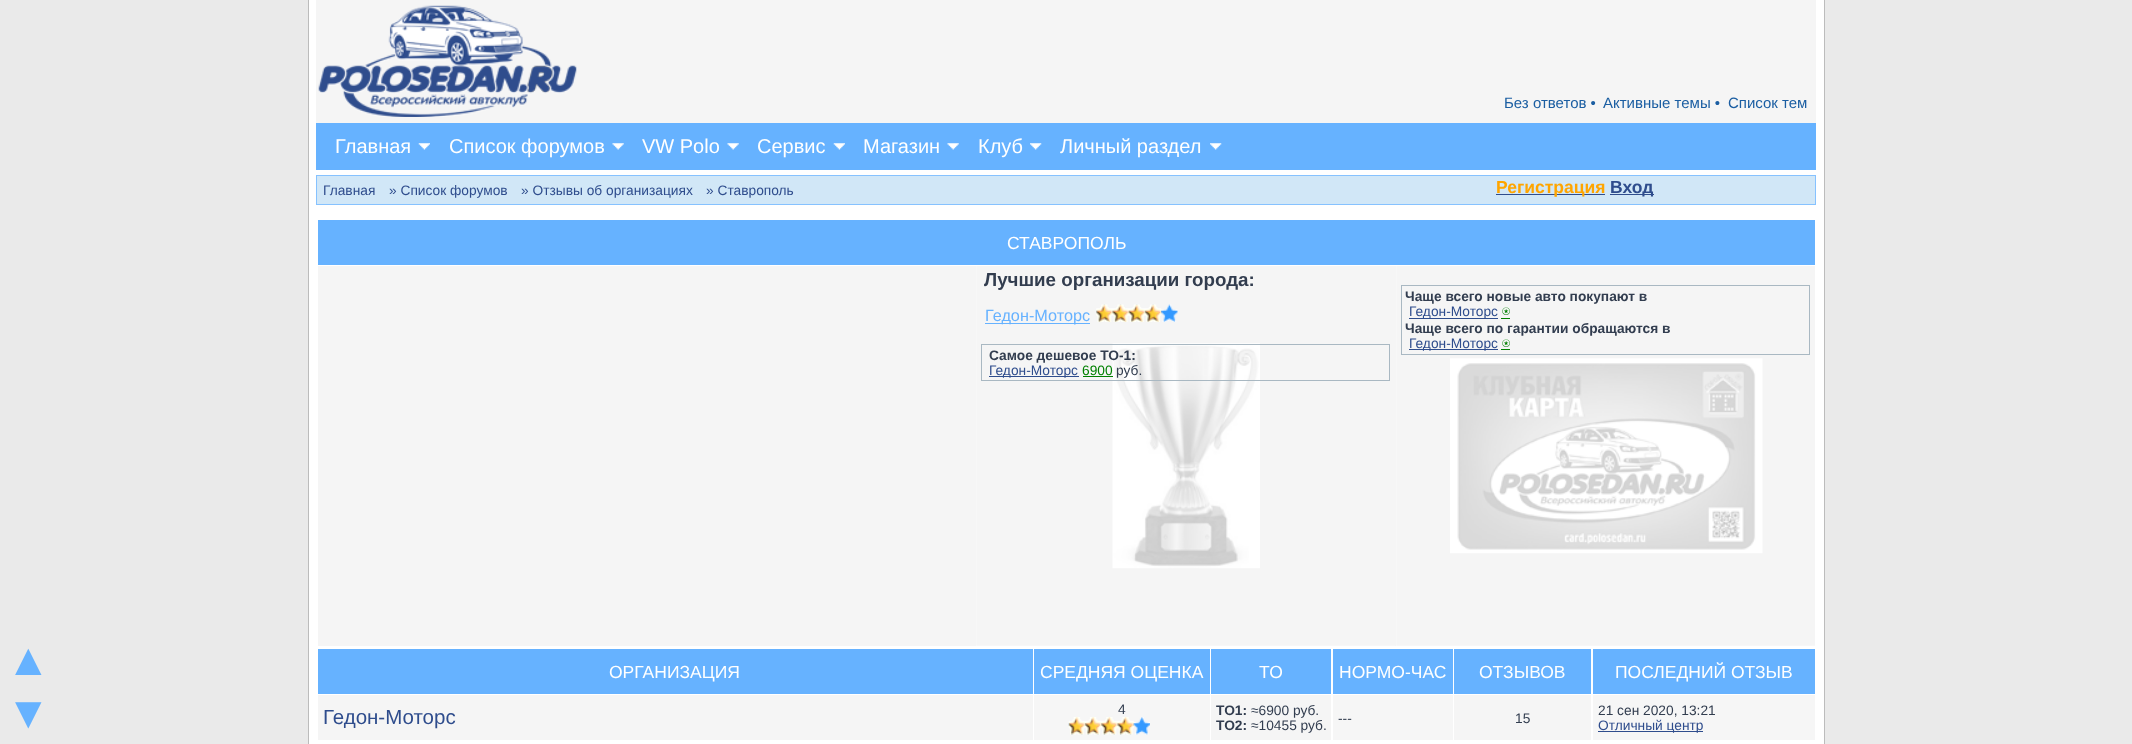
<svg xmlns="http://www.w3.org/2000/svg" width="2132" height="744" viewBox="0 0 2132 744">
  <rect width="100%" height="100%" fill="#eaeaea"/>
  <text x="6" y="675" font-family="Liberation Sans" font-size="45" fill="#66b2ff">▲</text>
  <text x="6" y="728" font-family="Liberation Sans" font-size="45" fill="#66b2ff">▼</text>
  <rect x="309" y="0" width="1515" height="744" fill="#ffffff"/>
  <rect x="1824" y="0" width="1" height="744" fill="#bcbcbc"/>
  <rect x="308" y="0" width="1" height="744" fill="#bcbcbc"/>
  <rect x="316" y="0" width="1500" height="123" fill="#f5f5f5"/>
  <image x="318" y="5" width="259" height="112" href="img1.png"/>
  <text x="1504" y="108" font-family="Liberation Sans" font-size="15" fill="#1b5ea2">Без ответов •</text>
  <text x="1603" y="108" font-family="Liberation Sans" font-size="15" fill="#1b5ea2">Активные темы •</text>
  <text x="1728" y="108" font-family="Liberation Sans" font-size="15" fill="#1b5ea2">Список тем</text>
  <rect x="316" y="123" width="1500" height="47" fill="#66b2ff"/>
  <image x="418" y="143" width="12" height="7" href="img2.png"/>
  <text x="335" y="153" font-family="Liberation Sans" font-size="20" fill="#ffffff">Главная</text>
  <image x="612" y="143" width="12" height="7" href="img3.png"/>
  <text x="449" y="153" font-family="Liberation Sans" font-size="20" fill="#ffffff">Список форумов</text>
  <image x="727" y="143" width="12" height="7" href="img3.png"/>
  <text x="642" y="153" font-family="Liberation Sans" font-size="20" fill="#ffffff">VW Polo</text>
  <image x="833" y="143" width="12" height="7" href="img4.png"/>
  <text x="757" y="153" font-family="Liberation Sans" font-size="20" fill="#ffffff">Сервис</text>
  <image x="947" y="143" width="12" height="7" href="img5.png"/>
  <text x="863" y="153" font-family="Liberation Sans" font-size="20" fill="#ffffff">Магазин</text>
  <image x="1030" y="143" width="12" height="7" href="img6.png"/>
  <text x="978" y="153" font-family="Liberation Sans" font-size="20" fill="#ffffff">Клуб</text>
  <image x="1210" y="143" width="12" height="7" href="img6.png"/>
  <text x="1060" y="153" font-family="Liberation Sans" font-size="20" fill="#ffffff">Личный раздел</text>
  <rect x="316.5" y="175.5" width="1499" height="29" fill="#d1e7f7" stroke="#86c2ff"/>
  <text x="323" y="195" font-family="Liberation Sans" font-size="13.75" fill="#2f4d8d">Главная</text>
  <text x="389" y="195" font-family="Liberation Sans" font-size="13.75" fill="#2f4d8d">» Список форумов</text>
  <text x="521" y="195" font-family="Liberation Sans" font-size="13.75" fill="#2f4d8d">» Отзывы об организациях</text>
  <text x="706" y="195" font-family="Liberation Sans" font-size="13.75" fill="#2f4d8d">» Ставрополь</text>
  <rect x="1496" y="194" width="109" height="1" fill="#2f4d8d"/>
  <text x="1496" y="193" font-family="Liberation Sans" font-size="17.5" font-weight="bold" fill="#ffa500">Регистрация</text>
  <rect x="1610" y="194" width="44" height="1" fill="#2f4d8d"/>
  <text x="1610" y="193" font-family="Liberation Sans" font-size="17.5" font-weight="bold" fill="#2f4d8d">Вход</text>
  <rect x="318" y="220" width="1497" height="45" fill="#66b2ff"/>
  <text x="1007" y="249" font-family="Liberation Sans" font-size="17.5" fill="#ffffff">СТАВРОПОЛЬ</text>
  <rect x="318" y="266" width="1078" height="380" fill="#f5f5f5"/>
  <rect x="976" y="266" width="419" height="380" fill="#ffffff"/>
  <image x="976" y="266" width="419" height="380" href="img7.png"/>
  <text x="984" y="286" font-family="Liberation Sans" font-size="18.75" font-weight="bold" fill="#323d4f">Лучшие организации города:</text>
  <rect x="985" y="323" width="105" height="1" fill="#66b2ff"/>
  <text x="985" y="321" font-family="Liberation Sans" font-size="16.25" fill="#66b2ff">Гедон-Моторс</text>
  <image x="1096" y="304" width="82" height="18" href="img8.png"/>
  <image x="1096" y="304" width="66" height="18" href="img9.png"/>
  <rect x="981.5" y="344.5" width="408" height="36" fill="none" stroke="#a9b8c2"/>
  <text x="989" y="360" font-family="Liberation Sans" font-size="13.75" font-weight="bold" fill="#323d4f">Самое дешевое ТО-1:</text>
  <rect x="989" y="376" width="90" height="1" fill="#2f4d8d"/>
  <text x="989" y="375" font-family="Liberation Sans" font-size="13.75" fill="#2f4d8d">Гедон-Моторс</text>
  <text x="1082" y="375" font-family="Liberation Sans" font-size="13.75" fill="#008000">6900</text>
  <rect x="1083" y="376" width="30" height="1" fill="#008000"/>
  <text x="1116" y="375" font-family="Liberation Sans" font-size="13.75" fill="#323d4f">руб.</text>
  <image x="1396" y="266" width="419" height="380" href="img10.png"/>
  <rect x="1401.5" y="285.5" width="408" height="69" fill="none" stroke="#a9b8c2"/>
  <text x="1405" y="301" font-family="Liberation Sans" font-size="13.75" font-weight="bold" fill="#323d4f">Чаще всего новые авто покупают в</text>
  <rect x="1409" y="318" width="89" height="1" fill="#2f4d8d"/>
  <text x="1409" y="316" font-family="Liberation Sans" font-size="13.75" fill="#2f4d8d">Гедон-Моторс</text>
  <text x="1502" y="316" font-family="FreeSerif" font-size="13.75" fill="#008000">⍟</text>
  <rect x="1501" y="318" width="9" height="1" fill="#008000"/>
  <text x="1405" y="333" font-family="Liberation Sans" font-size="13.75" font-weight="bold" fill="#323d4f">Чаще всего по гарантии обращаются в</text>
  <rect x="1409" y="349" width="89" height="1" fill="#2f4d8d"/>
  <text x="1409" y="348" font-family="Liberation Sans" font-size="13.75" fill="#2f4d8d">Гедон-Моторс</text>
  <text x="1502" y="348" font-family="FreeSerif" font-size="13.75" fill="#008000">⍟</text>
  <rect x="1501" y="349" width="9" height="1" fill="#008000"/>
  <rect x="318" y="649" width="715" height="45" fill="#66b2ff"/>
  <text x="609" y="678" font-family="Liberation Sans" font-size="17.5" fill="#ffffff">ОРГАНИЗАЦИЯ</text>
  <rect x="1034" y="649" width="176" height="45" fill="#66b2ff"/>
  <text x="1040" y="678" font-family="Liberation Sans" font-size="17.5" fill="#ffffff">СРЕДНЯЯ ОЦЕНКА</text>
  <rect x="1211" y="649" width="120" height="45" fill="#66b2ff"/>
  <text x="1259" y="678" font-family="Liberation Sans" font-size="17.5" fill="#ffffff">TO</text>
  <rect x="1333" y="649" width="120" height="45" fill="#66b2ff"/>
  <text x="1339" y="678" font-family="Liberation Sans" font-size="17.5" fill="#ffffff">НОРМО-ЧАС</text>
  <rect x="1454" y="649" width="137" height="45" fill="#66b2ff"/>
  <text x="1479" y="678" font-family="Liberation Sans" font-size="17.5" fill="#ffffff">ОТЗЫВОВ</text>
  <rect x="1593" y="649" width="222" height="45" fill="#66b2ff"/>
  <text x="1615" y="678" font-family="Liberation Sans" font-size="17.5" fill="#ffffff">ПОСЛЕДНИЙ ОТЗЫВ</text>
  <rect x="318" y="695" width="715" height="45" fill="#f5f5f5"/>
  <text x="323" y="724" font-family="Liberation Sans" font-size="20.5" fill="#2f4d8d">Гедон-Моторс</text>
  <rect x="1034" y="695" width="176" height="45" fill="#f6f6f6"/>
  <text x="1118" y="714" font-family="Liberation Sans" font-size="13.75" fill="#323d4f">4</text>
  <image x="1068" y="717" width="82" height="18" href="img11.png"/>
  <image x="1068" y="717" width="66" height="18" href="img12.png"/>
  <rect x="1211" y="695" width="120" height="45" fill="#f5f5f5"/>
  <text x="1216" y="715" font-family="Liberation Sans" font-size="13.75" font-weight="bold" fill="#323d4f">TO1:</text>
  <text x="1251" y="715" font-family="Liberation Sans" font-size="13.75" fill="#323d4f">≈6900 руб.</text>
  <text x="1216" y="730" font-family="Liberation Sans" font-size="13.75" font-weight="bold" fill="#323d4f">TO2:</text>
  <text x="1251" y="730" font-family="Liberation Sans" font-size="13.75" fill="#323d4f">≈10455 руб.</text>
  <rect x="1333" y="695" width="120" height="45" fill="#f6f6f6"/>
  <text x="1338" y="723" font-family="Liberation Sans" font-size="13.75" fill="#323d4f">---</text>
  <rect x="1454" y="695" width="137" height="45" fill="#f5f5f5"/>
  <text x="1515" y="723" font-family="Liberation Sans" font-size="13.75" fill="#323d4f">15</text>
  <rect x="1593" y="695" width="222" height="45" fill="#f6f6f6"/>
  <text x="1598" y="715" font-family="Liberation Sans" font-size="13.75" fill="#323d4f">21 сен 2020, 13:21</text>
  <rect x="1598" y="731" width="105" height="1" fill="#2f4d8d"/>
  <text x="1598" y="730" font-family="Liberation Sans" font-size="13.75" fill="#2f4d8d">Отличный центр</text>
</svg>
